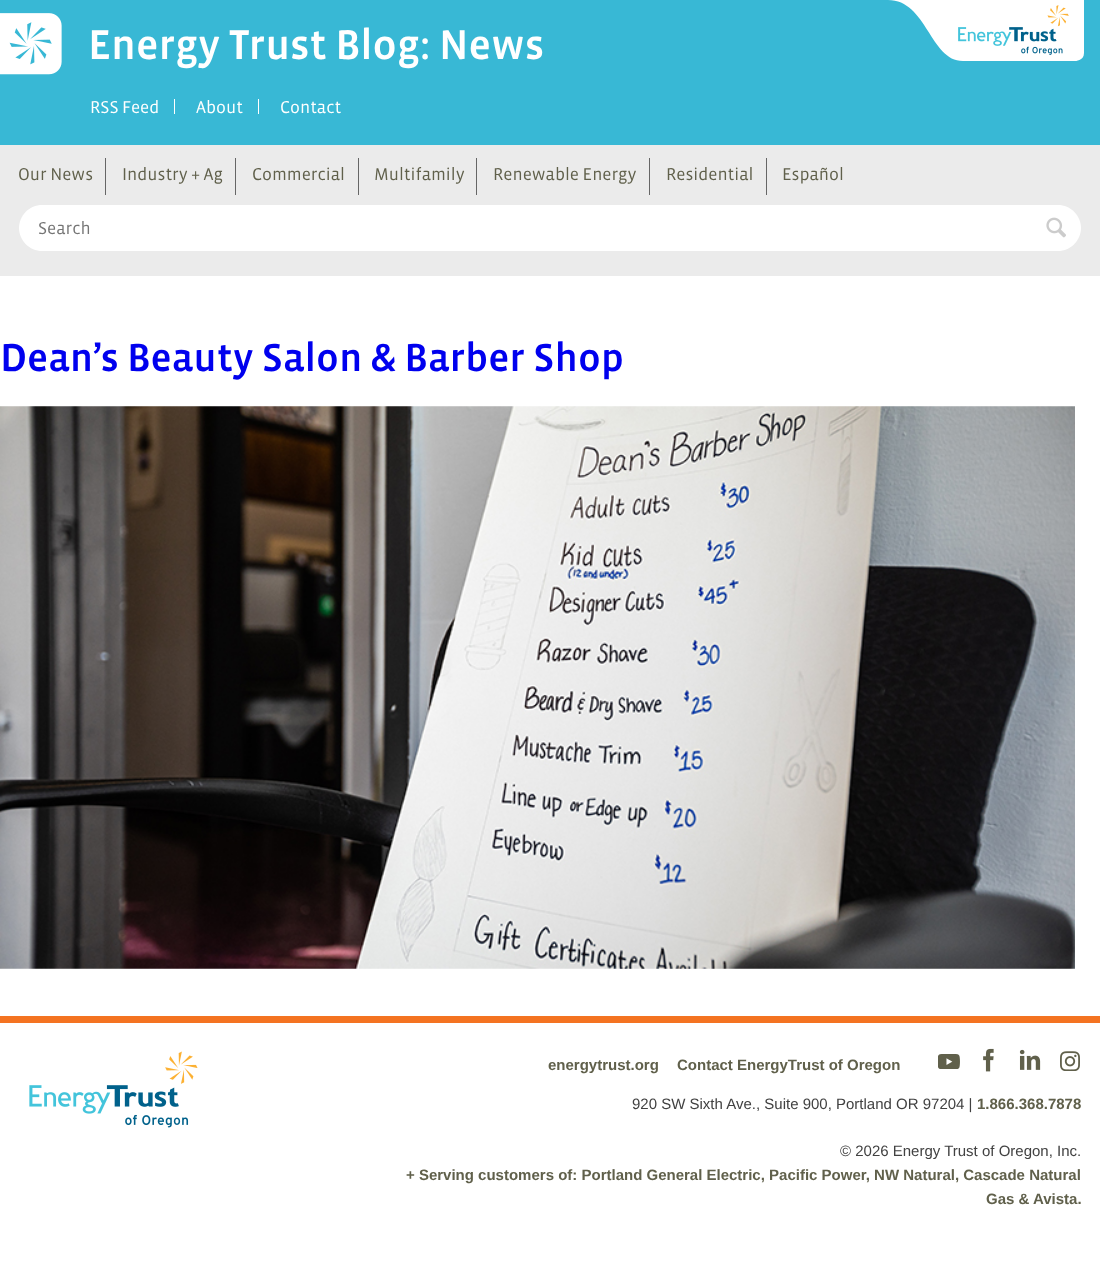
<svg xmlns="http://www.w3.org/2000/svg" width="1100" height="1266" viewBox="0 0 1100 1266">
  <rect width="100%" height="100%" fill="#ffffff"/>
  <rect x="0" y="0" width="1100" height="145" fill="#38b8d5"/>
  <image x="0" y="13" width="62" height="62" href="img1.png"/>
  <text x="88" y="59" font-family="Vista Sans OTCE" font-size="42.5" font-weight="500" fill="#ffffff">Energy Trust Blog: News</text>
  <path d="M888 0C927 0 930 61 963 61H1075C1075 61 1084 61 1084 53V0Z" fill="#ffffff"/>
  <image x="958" y="5" width="111" height="50" href="img2.png"/>
  <rect x="174" y="99" width="1" height="15" fill="#ffffff"/>
  <text x="90" y="113" font-family="Vista Sans OTCE" font-size="17.5" fill="#ffffff">RSS Feed</text>
  <rect x="258" y="99" width="1" height="15" fill="#ffffff"/>
  <text x="196" y="113" font-family="Vista Sans OTCE" font-size="17.5" fill="#ffffff">About</text>
  <text x="280" y="113" font-family="Vista Sans OTCE" font-size="17.5" fill="#ffffff">Contact</text>
  <rect x="0" y="145" width="1100" height="131" fill="#ebebeb"/>
  <text x="18" y="180" font-family="Vista Sans OTCE" font-size="17.5" fill="#60604b">Our News</text>
  <rect x="105" y="158" width="1" height="37" fill="#666666"/>
  <text x="122" y="180" font-family="Vista Sans OTCE" font-size="17.5" fill="#60604b">Industry + Ag</text>
  <rect x="235" y="158" width="1" height="37" fill="#666666"/>
  <text x="252" y="180" font-family="Vista Sans OTCE" font-size="17.5" fill="#60604b">Commercial</text>
  <rect x="358" y="158" width="1" height="37" fill="#666666"/>
  <text x="374" y="180" font-family="Vista Sans OTCE" font-size="17.5" fill="#60604b">Multifamily</text>
  <rect x="476" y="158" width="1" height="37" fill="#666666"/>
  <text x="493" y="180" font-family="Vista Sans OTCE" font-size="17.5" fill="#60604b">Renewable Energy</text>
  <rect x="649" y="158" width="1" height="37" fill="#666666"/>
  <text x="666" y="180" font-family="Vista Sans OTCE" font-size="17.5" fill="#60604b">Residential</text>
  <rect x="766" y="158" width="1" height="37" fill="#666666"/>
  <text x="782" y="180" font-family="Vista Sans OTCE" font-size="17.5" fill="#60604b">Español</text>
  <path d="M42 205H1031V251H42C29.5 251 19 240.5 19 228C19 215.5 29.5 205 42 205Z" fill="#ffffff"/>
  <text x="38" y="234" font-family="Vista Sans OTCE" font-size="17.5" fill="#757575">Search</text>
  <path d="M1031 205H1058C1070.5 205 1081 215.5 1081 228C1081 240.5 1070.5 251 1058 251H1031Z" fill="#ffffff"/>
  <image x="1046" y="217" width="20" height="21" href="img3.png"/>
  <text x="0" y="371" font-family="Vista Sans OTCE" font-size="40" font-weight="500" fill="#0000ee">Dean’s Beauty Salon &amp; Barber Shop</text>
  <image x="0" y="406" width="1075" height="563" href="img4.png"/>
  <rect x="0" y="1016" width="1100" height="7" fill="#f47321"/>
  <image x="29" y="1051" width="169" height="77" href="img5.png"/>
  <text x="548" y="1070" font-family="Liberation Sans" font-size="15" font-weight="bold" fill="#60604b">energytrust.org</text>
  <text x="677" y="1070" font-family="Liberation Sans" font-size="15" font-weight="bold" fill="#60604b">Contact EnergyTrust of Oregon</text>
  <image x="938" y="1054" width="22" height="15" href="img6.png"/>
  <image x="983" y="1048" width="11" height="24" href="img7.png"/>
  <image x="1019" y="1049" width="22" height="21" href="img8.png"/>
  <image x="1060" y="1051" width="20" height="20" href="img9.png"/>
  <text x="632" y="1109" font-family="Liberation Sans" font-size="15" fill="#414141">920 SW Sixth Ave., Suite 900, Portland OR 97204 |</text>
  <text x="977" y="1109" font-family="Liberation Sans" font-size="15" font-weight="bold" fill="#60604b">1.866.368.7878</text>
  <text x="840" y="1156" font-family="Liberation Sans" font-size="15" fill="#414141">© 2026 Energy Trust of Oregon, Inc.</text>
  <text x="406" y="1180" font-family="Liberation Sans" font-size="15" font-weight="bold" fill="#60604b">+ Serving customers of: Portland General Electric, Pacific Power, NW Natural, Cascade Natural</text>
  <text x="986" y="1204" font-family="Liberation Sans" font-size="15" font-weight="bold" fill="#60604b">Gas &amp; Avista.</text>
</svg>
